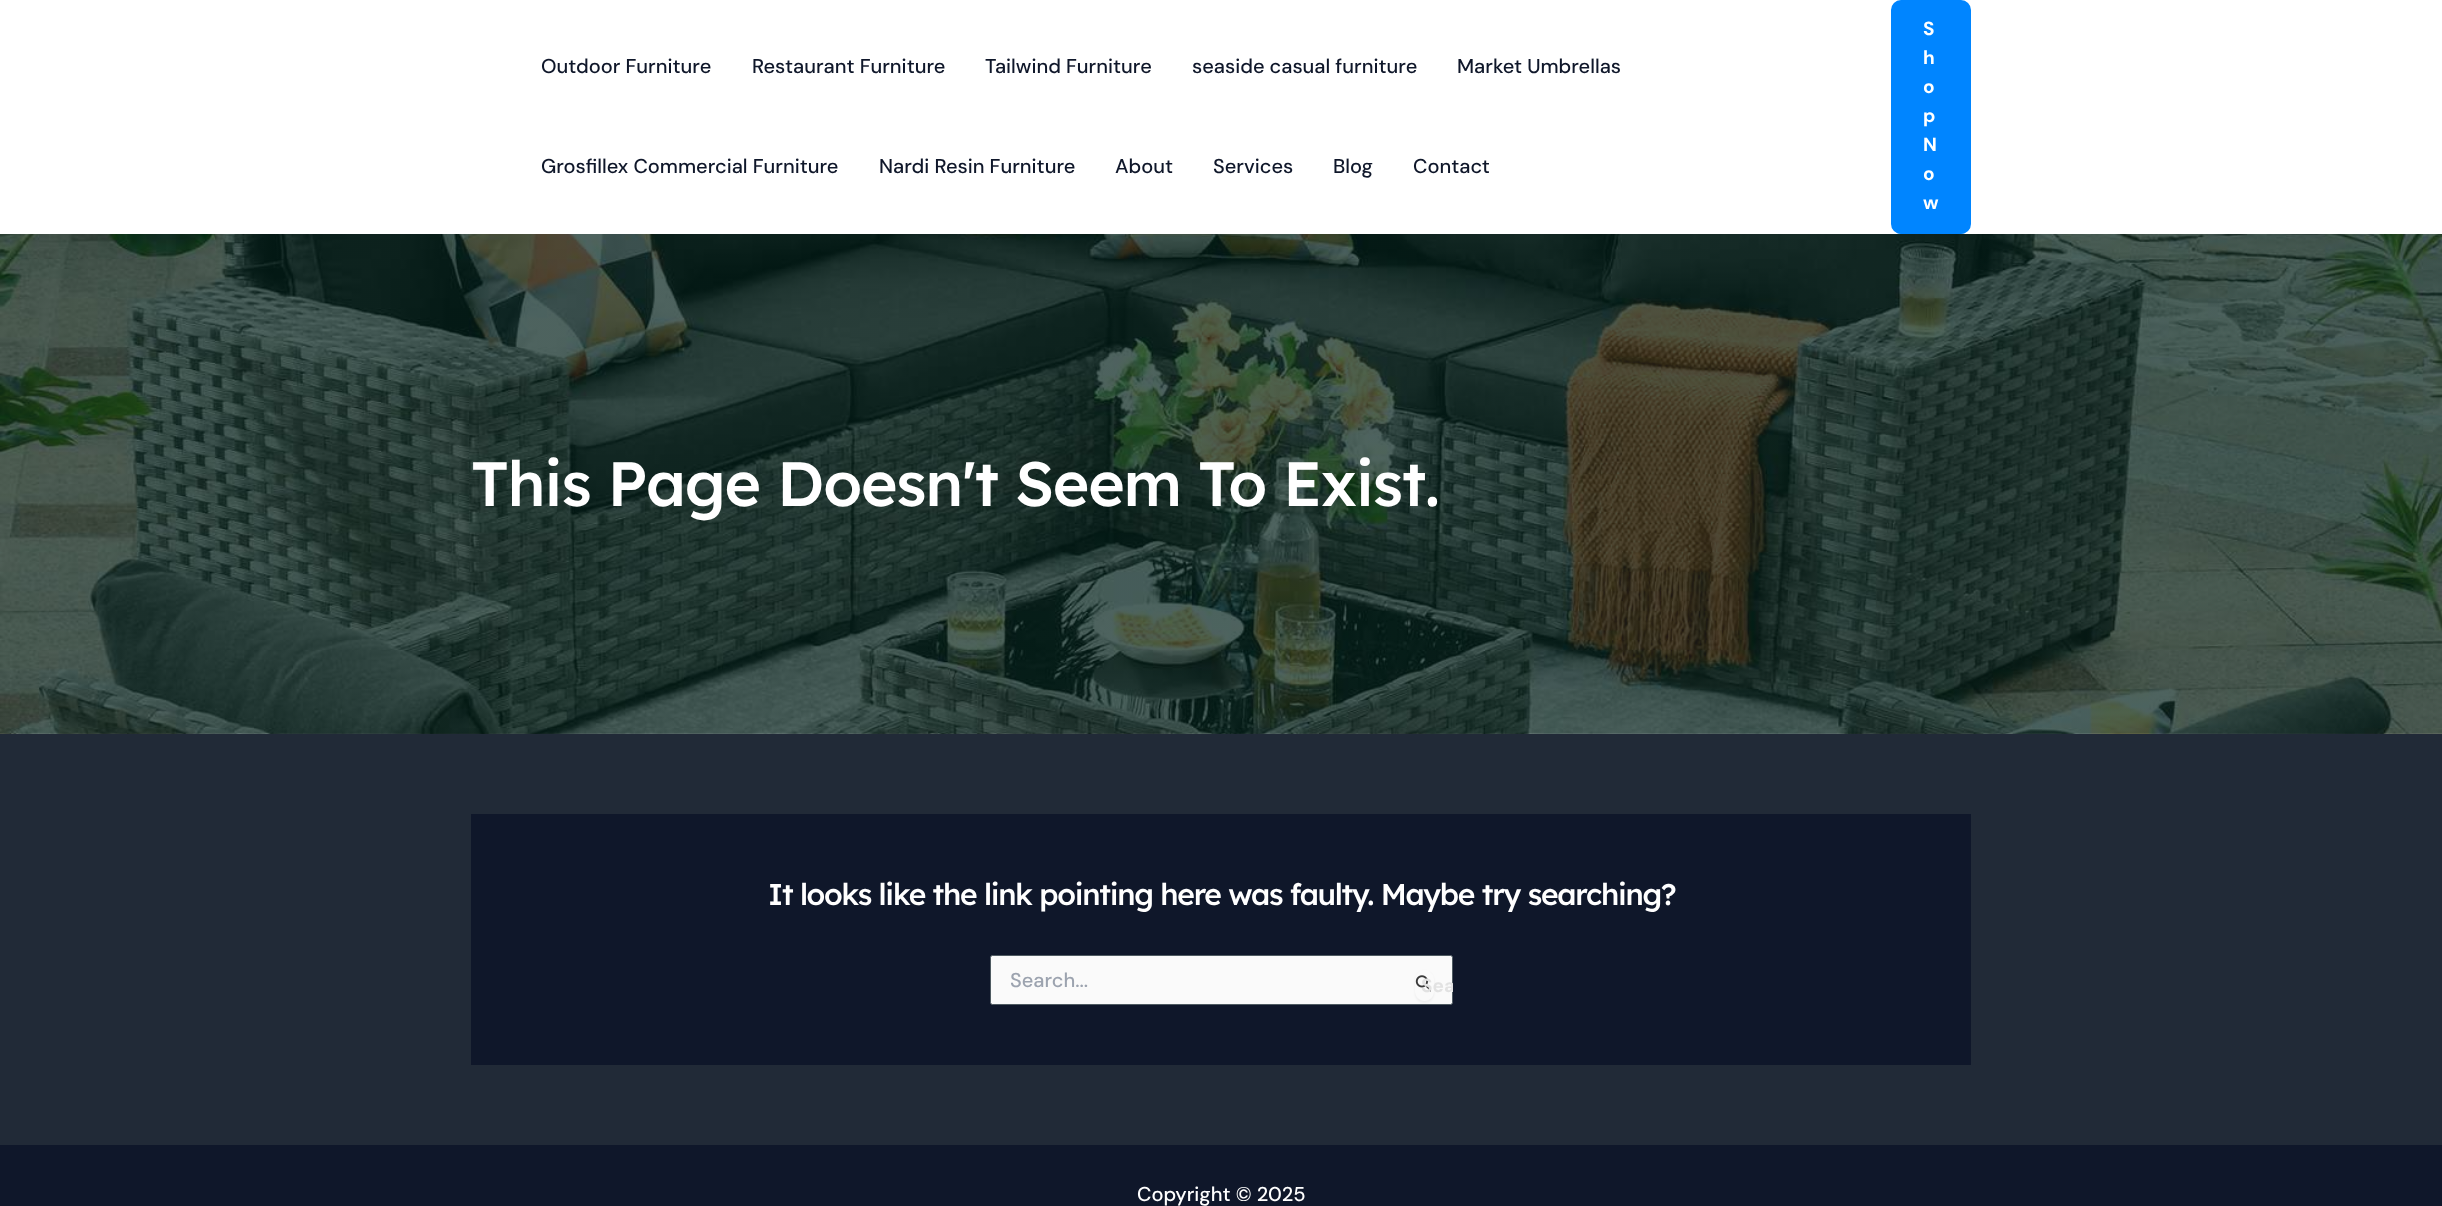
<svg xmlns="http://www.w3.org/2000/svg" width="2442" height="1206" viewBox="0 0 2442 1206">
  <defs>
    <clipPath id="clip1"><path d="M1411 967H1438V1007H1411ZM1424.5 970C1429.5 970 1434 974.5 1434 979.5V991.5C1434 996.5 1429.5 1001 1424.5 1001C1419.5 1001 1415 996.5 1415 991.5V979.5C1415 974.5 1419.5 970 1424.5 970Z" clip-rule="evenodd"/></clipPath>
    <filter id="blur1" x="-50%" y="-200%" width="200%" height="500%"><feGaussianBlur stdDeviation="1"/></filter>
    <clipPath id="clip2"><rect x="1396" y="955" width="57" height="63" rx="2.5"/></clipPath>
  </defs>
  <rect width="100%" height="100%" fill="#212a37"/>
  <rect x="0" y="0" width="2442" height="234" fill="#ffffff"/>
  <text x="541" y="73" font-family="DM Sans" font-size="20" font-weight="500" fill="#0f172a">Outdoor Furniture</text>
  <text x="752" y="73" font-family="DM Sans" font-size="20" font-weight="500" fill="#0f172a">Restaurant Furniture</text>
  <text x="985" y="73" font-family="DM Sans" font-size="20" font-weight="500" fill="#0f172a">Tailwind Furniture</text>
  <text x="1192" y="73" font-family="DM Sans" font-size="20" font-weight="500" fill="#0f172a">seaside casual furniture</text>
  <text x="1457" y="73" font-family="DM Sans" font-size="20" font-weight="500" fill="#0f172a">Market Umbrellas</text>
  <text x="541" y="173" font-family="DM Sans" font-size="20" font-weight="500" fill="#0f172a">Grosfillex Commercial Furniture</text>
  <text x="879" y="173" font-family="DM Sans" font-size="20" font-weight="500" fill="#0f172a">Nardi Resin Furniture</text>
  <text x="1115" y="173" font-family="DM Sans" font-size="20" font-weight="500" fill="#0f172a">About</text>
  <text x="1213" y="173" font-family="DM Sans" font-size="20" font-weight="500" fill="#0f172a">Services</text>
  <text x="1333" y="173" font-family="DM Sans" font-size="20" font-weight="500" fill="#0f172a">Blog</text>
  <text x="1413" y="173" font-family="DM Sans" font-size="20" font-weight="500" fill="#0f172a">Contact</text>
  <rect x="1892.5" y="1.5" width="77" height="231" rx="8.5" fill="#0085ff" stroke="#0085ff" stroke-width="3"/>
  <text x="1923" y="35" font-family="DM Sans" font-size="19" font-weight="bold" fill="#ffffff">S</text>
  <text x="1923" y="64" font-family="DM Sans" font-size="19" font-weight="bold" fill="#ffffff">h</text>
  <text x="1923" y="93" font-family="DM Sans" font-size="19" font-weight="bold" fill="#ffffff">o</text>
  <text x="1923" y="122" font-family="DM Sans" font-size="19" font-weight="bold" fill="#ffffff">p</text>
  <text x="1923" y="151" font-family="DM Sans" font-size="19" font-weight="bold" fill="#ffffff">N</text>
  <text x="1923" y="180" font-family="DM Sans" font-size="19" font-weight="bold" fill="#ffffff">o</text>
  <text x="1923" y="209" font-family="DM Sans" font-size="19" font-weight="bold" fill="#ffffff">w</text>
  <image x="0" y="234" width="2442" height="500" href="img1.png"/>
  <text x="471" y="506" font-family="Lexend" font-size="62.5" font-weight="500" letter-spacing="-1.25" fill="#ffffff">This Page Doesn't Seem To Exist.</text>
  <rect x="471" y="814" width="1500" height="251" fill="#0f172a"/>
  <text x="768" y="905" font-family="Lexend" font-size="30" font-weight="500" letter-spacing="-1.25" fill="#ffffff">It looks like the link pointing here was faulty. Maybe try searching?</text>
  <rect x="990.5" y="955.5" width="462" height="49" rx="2" fill="#fafafa" stroke="#4f5b62"/>
  <text x="1010" y="987" font-family="DM Sans" font-size="20" font-weight="500" fill="#9ca3af">Search...</text>
  <g clip-path="url(#clip1)">
    <rect x="1415" y="971" width="19" height="32" rx="9.5" fill="#000000" fill-opacity="0.05" filter="url(#blur1)"/>
  </g>
  <image x="1415" y="975" width="16" height="17" href="img2.png"/>
  <g clip-path="url(#clip2)">
    <text x="1421" y="992" font-family="DM Sans" font-size="19" font-weight="bold" fill="#e2e2e2">Sea</text>
  </g>
  <rect x="0" y="1145" width="2442" height="61" fill="#0f172a"/>
  <text x="1137" y="1201" font-family="DM Sans" font-size="20" font-weight="500" fill="#ffffff">Copyright © 2025</text>
</svg>
